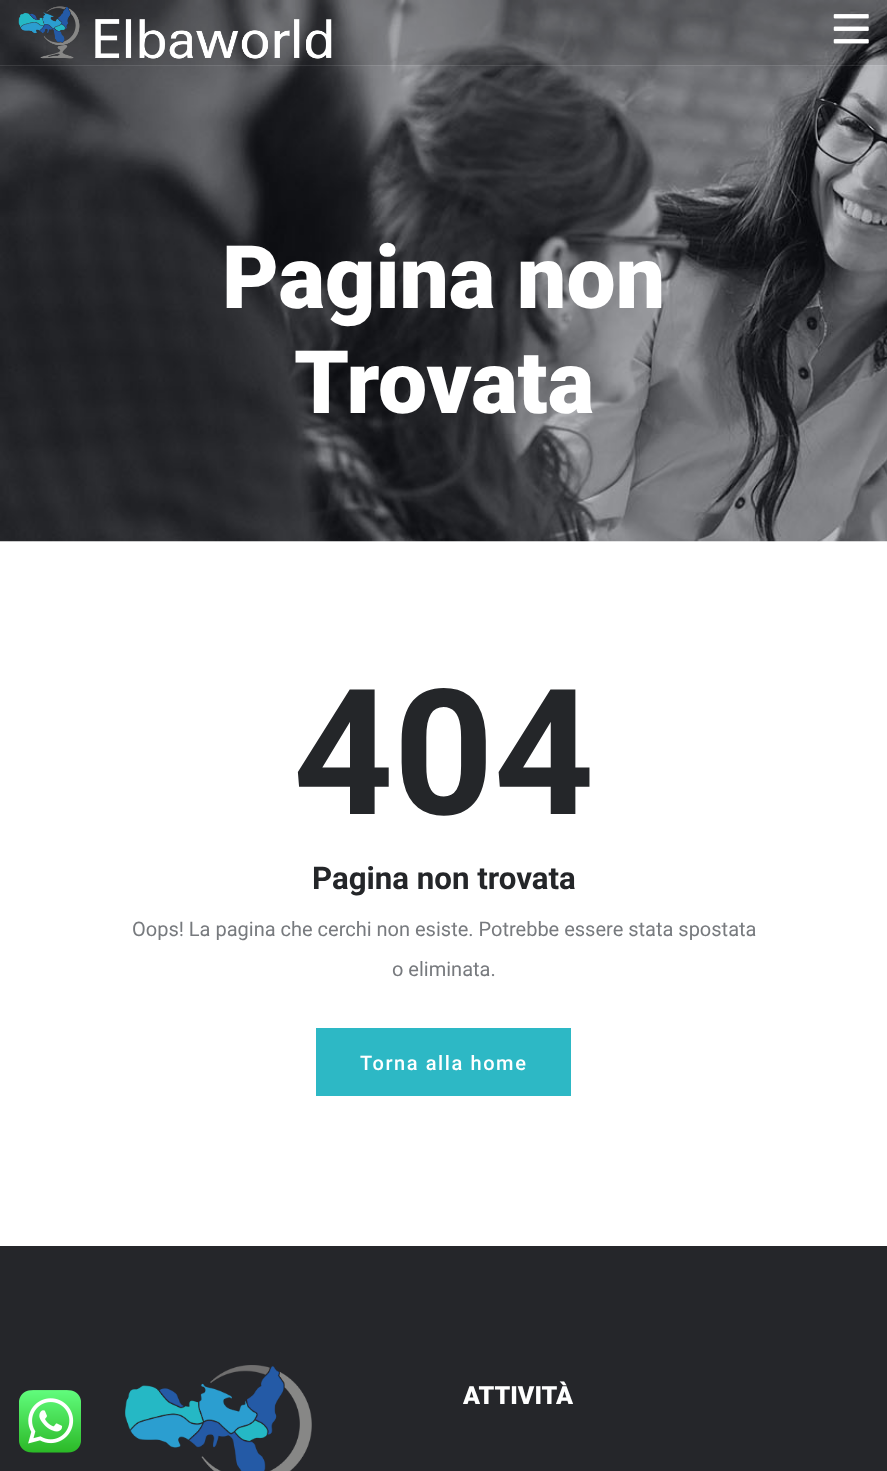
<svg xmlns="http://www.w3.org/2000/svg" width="887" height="1471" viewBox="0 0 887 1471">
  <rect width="100%" height="100%" fill="#ffffff"/>
  <image x="0" y="0" width="887" height="542" href="img3.png"/>
  <path d="M0 65V66H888V1V65Z" fill="#ffffff" fill-opacity="0.1"/>
  <rect x="46" y="0" width="841" height="65" fill="#242629" fill-opacity="0.1"/>
  <image x="18" y="6" width="314" height="53" href="img1.png"/>
  <image x="833" y="14" width="36" height="30" href="img2.png"/>
  <text x="222" y="308" font-family="Roboto" font-size="87.5" font-weight="900" fill="#ffffff">Pagina non</text>
  <text x="294" y="413" font-family="Roboto" font-size="87.5" font-weight="900" fill="#ffffff">Trovata</text>
  <text x="293" y="814" font-family="Roboto" font-size="175" font-weight="bold" fill="#242629">404</text>
  <text x="312" y="889" font-family="Roboto" font-size="31.25" font-weight="bold" fill="#242629">Pagina non trovata</text>
  <text x="132" y="936" font-family="Roboto" font-size="20" fill="#777a7e">Oops! La pagina che cerchi non esiste. Potrebbe essere stata spostata</text>
  <text x="392" y="976" font-family="Roboto" font-size="20" fill="#777a7e">o eliminata.</text>
  <rect x="316" y="1028" width="255" height="68" fill="#2db8c5"/>
  <text x="360" y="1070" font-family="Roboto" font-size="20" font-weight="500" letter-spacing="1.6" fill="#ffffff">Torna alla home</text>
  <rect x="0" y="1246" width="887" height="225" fill="#25262a"/>
  <image x="19" y="1390" width="62" height="63" href="img4.png"/>
  <image x="125" y="1365" width="187" height="106" href="img5.png"/>
  <text x="463" y="1404" font-family="Roboto" font-size="25" font-weight="900" fill="#ffffff">ATTIVITÀ</text>
</svg>
